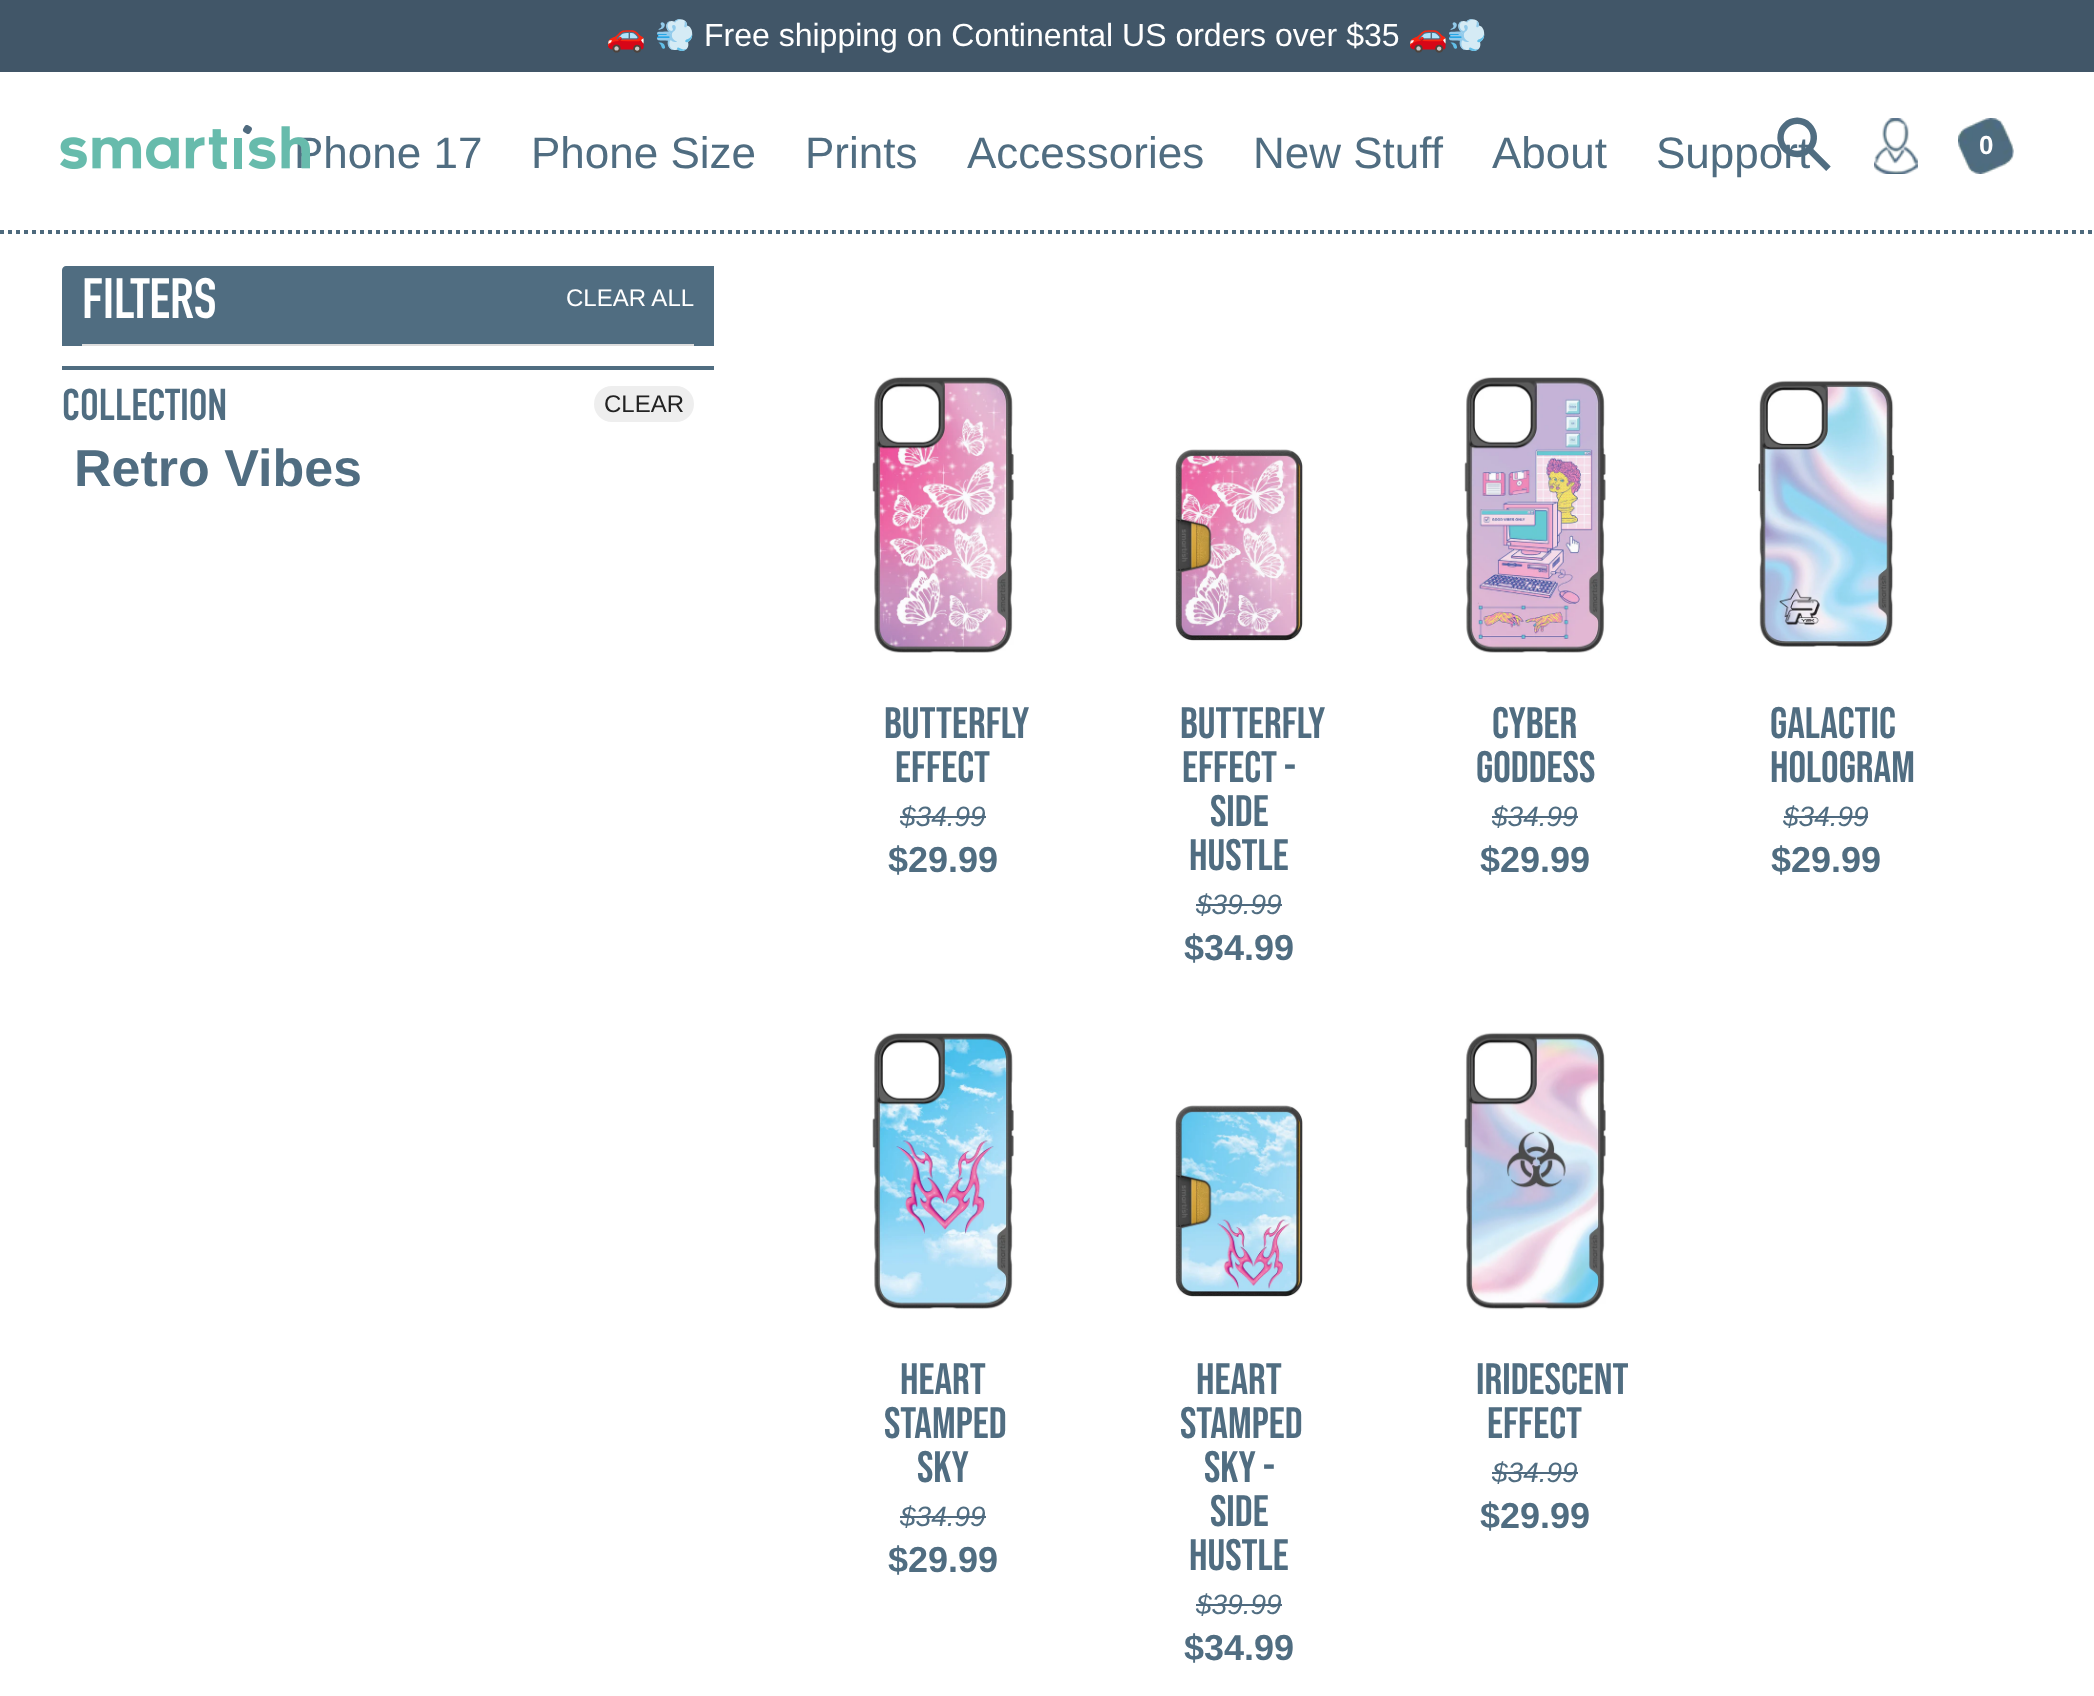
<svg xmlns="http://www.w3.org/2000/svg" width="2094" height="1696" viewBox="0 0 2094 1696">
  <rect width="100%" height="100%" fill="#ffffff"/>
  <path d="M0 232H2094" fill="none" stroke="#4e6a7d" stroke-width="4" stroke-dasharray="4 4"/>
  <rect x="0" y="0" width="2094" height="72" fill="#415668"/>
  <text x="606" y="46" font-family="Noto Color Emoji" font-size="32" fill="#ffffff">🚗</text>
  <text x="655" y="46" font-family="Noto Color Emoji" font-size="32" fill="#ffffff">💨</text>
  <text x="704" y="46" font-family="Liberation Sans" font-size="32" fill="#ffffff">Free shipping on Continental US orders over $35</text>
  <text x="1408" y="46" font-family="Noto Color Emoji" font-size="32" fill="#ffffff">🚗💨</text>
  <text x="294" y="168" font-family="Liberation Sans" font-size="44" fill="#506d81">Phone 17</text>
  <image x="60" y="125" width="250" height="45" href="img1.png"/>
  <text x="531" y="168" font-family="Liberation Sans" font-size="44" fill="#506d81">Phone Size</text>
  <text x="805" y="168" font-family="Liberation Sans" font-size="44" fill="#506d81">Prints</text>
  <text x="967" y="168" font-family="Liberation Sans" font-size="44" fill="#506d81">Accessories</text>
  <text x="1253" y="168" font-family="Liberation Sans" font-size="44" fill="#506d81">New Stuff</text>
  <text x="1492" y="168" font-family="Liberation Sans" font-size="44" fill="#506d81">About</text>
  <text x="1656" y="168" font-family="Liberation Sans" font-size="44" fill="#506d81">Support</text>
  <text x="1774" y="178" font-family="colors" font-size="60" fill="#506d81">2</text>
  <image x="1874" y="118" width="44" height="56" href="img2.png"/>
  <image x="1958" y="118" width="56" height="56" href="img3.png"/>
  <text x="1979" y="154" font-family="Liberation Sans" font-size="26" font-weight="bold" fill="#ffffff">0</text>
  <path d="M66 266H714V346H62V270C62 268 64 266 66 266Z" fill="#506d81"/>
  <rect x="82" y="344" width="612" height="2" fill="#dddddd"/>
  <text x="82" y="318" font-family="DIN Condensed" font-size="56" font-weight="bold" fill="#ffffff">FILTERS</text>
  <text x="566" y="306" font-family="Liberation Sans" font-size="24" fill="#ffffff">CLEAR ALL</text>
  <rect x="62" y="366" width="652" height="4" fill="#506d81"/>
  <text x="62" y="420" font-family="DIN Condensed" font-size="44" font-weight="bold" fill="#506d81">COLLECTION</text>
  <rect x="594" y="386" width="100" height="36" rx="18" fill="#eeeeee"/>
  <text x="604" y="412" font-family="Liberation Sans" font-size="24" fill="#222222">CLEAR</text>
  <text x="74" y="486" font-family="Liberation Sans" font-size="52" font-weight="bold" fill="#506d81">Retro Vibes</text>
  <image x="872" y="376" width="142" height="277" href="img4.png"/>
  <text x="884" y="738" font-family="Bebas Neue" font-size="44" fill="#506d81">BUTTERFLY</text>
  <text x="895" y="782" font-family="Bebas Neue" font-size="44" fill="#506d81">EFFECT</text>
  <text x="900" y="826" font-family="Liberation Sans" font-size="28" font-style="italic" fill="#506d81">$34.99</text>
  <rect x="900" y="816" width="86" height="2" fill="#4f6a7f"/>
  <text x="888" y="872" font-family="Liberation Sans" font-size="36" font-weight="bold" fill="#506d81">$29.99</text>
  <image x="1175" y="449" width="129" height="192" href="img5.png"/>
  <text x="1180" y="738" font-family="Bebas Neue" font-size="44" fill="#506d81">BUTTERFLY</text>
  <text x="1182" y="782" font-family="Bebas Neue" font-size="44" fill="#506d81">EFFECT -</text>
  <text x="1210" y="826" font-family="Bebas Neue" font-size="44" fill="#506d81">SIDE</text>
  <text x="1189" y="870" font-family="Bebas Neue" font-size="44" fill="#506d81">HUSTLE</text>
  <text x="1196" y="914" font-family="Liberation Sans" font-size="28" font-style="italic" fill="#506d81">$39.99</text>
  <rect x="1196" y="904" width="86" height="2" fill="#4f6a7f"/>
  <text x="1184" y="960" font-family="Liberation Sans" font-size="36" font-weight="bold" fill="#506d81">$34.99</text>
  <image x="1464" y="377" width="142" height="276" href="img6.png"/>
  <text x="1492" y="738" font-family="Bebas Neue" font-size="44" fill="#506d81">CYBER</text>
  <text x="1476" y="782" font-family="Bebas Neue" font-size="44" fill="#506d81">GODDESS</text>
  <text x="1492" y="826" font-family="Liberation Sans" font-size="28" font-style="italic" fill="#506d81">$34.99</text>
  <rect x="1492" y="816" width="86" height="2" fill="#4f6a7f"/>
  <text x="1480" y="872" font-family="Liberation Sans" font-size="36" font-weight="bold" fill="#506d81">$29.99</text>
  <image x="1758" y="380" width="137" height="267" href="img7.png"/>
  <text x="1770" y="738" font-family="Bebas Neue" font-size="44" fill="#506d81">GALACTIC</text>
  <text x="1770" y="782" font-family="Bebas Neue" font-size="44" fill="#506d81">HOLOGRAM</text>
  <text x="1783" y="826" font-family="Liberation Sans" font-size="28" font-style="italic" fill="#506d81">$34.99</text>
  <rect x="1784" y="816" width="84" height="2" fill="#4f6a7f"/>
  <text x="1771" y="872" font-family="Liberation Sans" font-size="36" font-weight="bold" fill="#506d81">$29.99</text>
  <image x="872" y="1032" width="142" height="278" href="img8.png"/>
  <text x="900" y="1394" font-family="Bebas Neue" font-size="44" fill="#506d81">HEART</text>
  <text x="884" y="1438" font-family="Bebas Neue" font-size="44" fill="#506d81">STAMPED</text>
  <text x="917" y="1482" font-family="Bebas Neue" font-size="44" fill="#506d81">SKY</text>
  <text x="900" y="1526" font-family="Liberation Sans" font-size="28" font-style="italic" fill="#506d81">$34.99</text>
  <rect x="900" y="1516" width="86" height="2" fill="#4f6a7f"/>
  <text x="888" y="1572" font-family="Liberation Sans" font-size="36" font-weight="bold" fill="#506d81">$29.99</text>
  <image x="1175" y="1105" width="128" height="192" href="img9.png"/>
  <text x="1196" y="1394" font-family="Bebas Neue" font-size="44" fill="#506d81">HEART</text>
  <text x="1180" y="1438" font-family="Bebas Neue" font-size="44" fill="#506d81">STAMPED</text>
  <text x="1204" y="1482" font-family="Bebas Neue" font-size="44" fill="#506d81">SKY -</text>
  <text x="1210" y="1526" font-family="Bebas Neue" font-size="44" fill="#506d81">SIDE</text>
  <text x="1189" y="1570" font-family="Bebas Neue" font-size="44" fill="#506d81">HUSTLE</text>
  <text x="1196" y="1614" font-family="Liberation Sans" font-size="28" font-style="italic" fill="#506d81">$39.99</text>
  <rect x="1196" y="1604" width="86" height="2" fill="#4f6a7f"/>
  <text x="1184" y="1660" font-family="Liberation Sans" font-size="36" font-weight="bold" fill="#506d81">$34.99</text>
  <image x="1464" y="1032" width="142" height="278" href="img10.png"/>
  <text x="1476" y="1394" font-family="Bebas Neue" font-size="44" fill="#506d81">IRIDESCENT</text>
  <text x="1487" y="1438" font-family="Bebas Neue" font-size="44" fill="#506d81">EFFECT</text>
  <text x="1492" y="1482" font-family="Liberation Sans" font-size="28" font-style="italic" fill="#506d81">$34.99</text>
  <rect x="1492" y="1472" width="86" height="2" fill="#4f6a7f"/>
  <text x="1480" y="1528" font-family="Liberation Sans" font-size="36" font-weight="bold" fill="#506d81">$29.99</text>
</svg>
